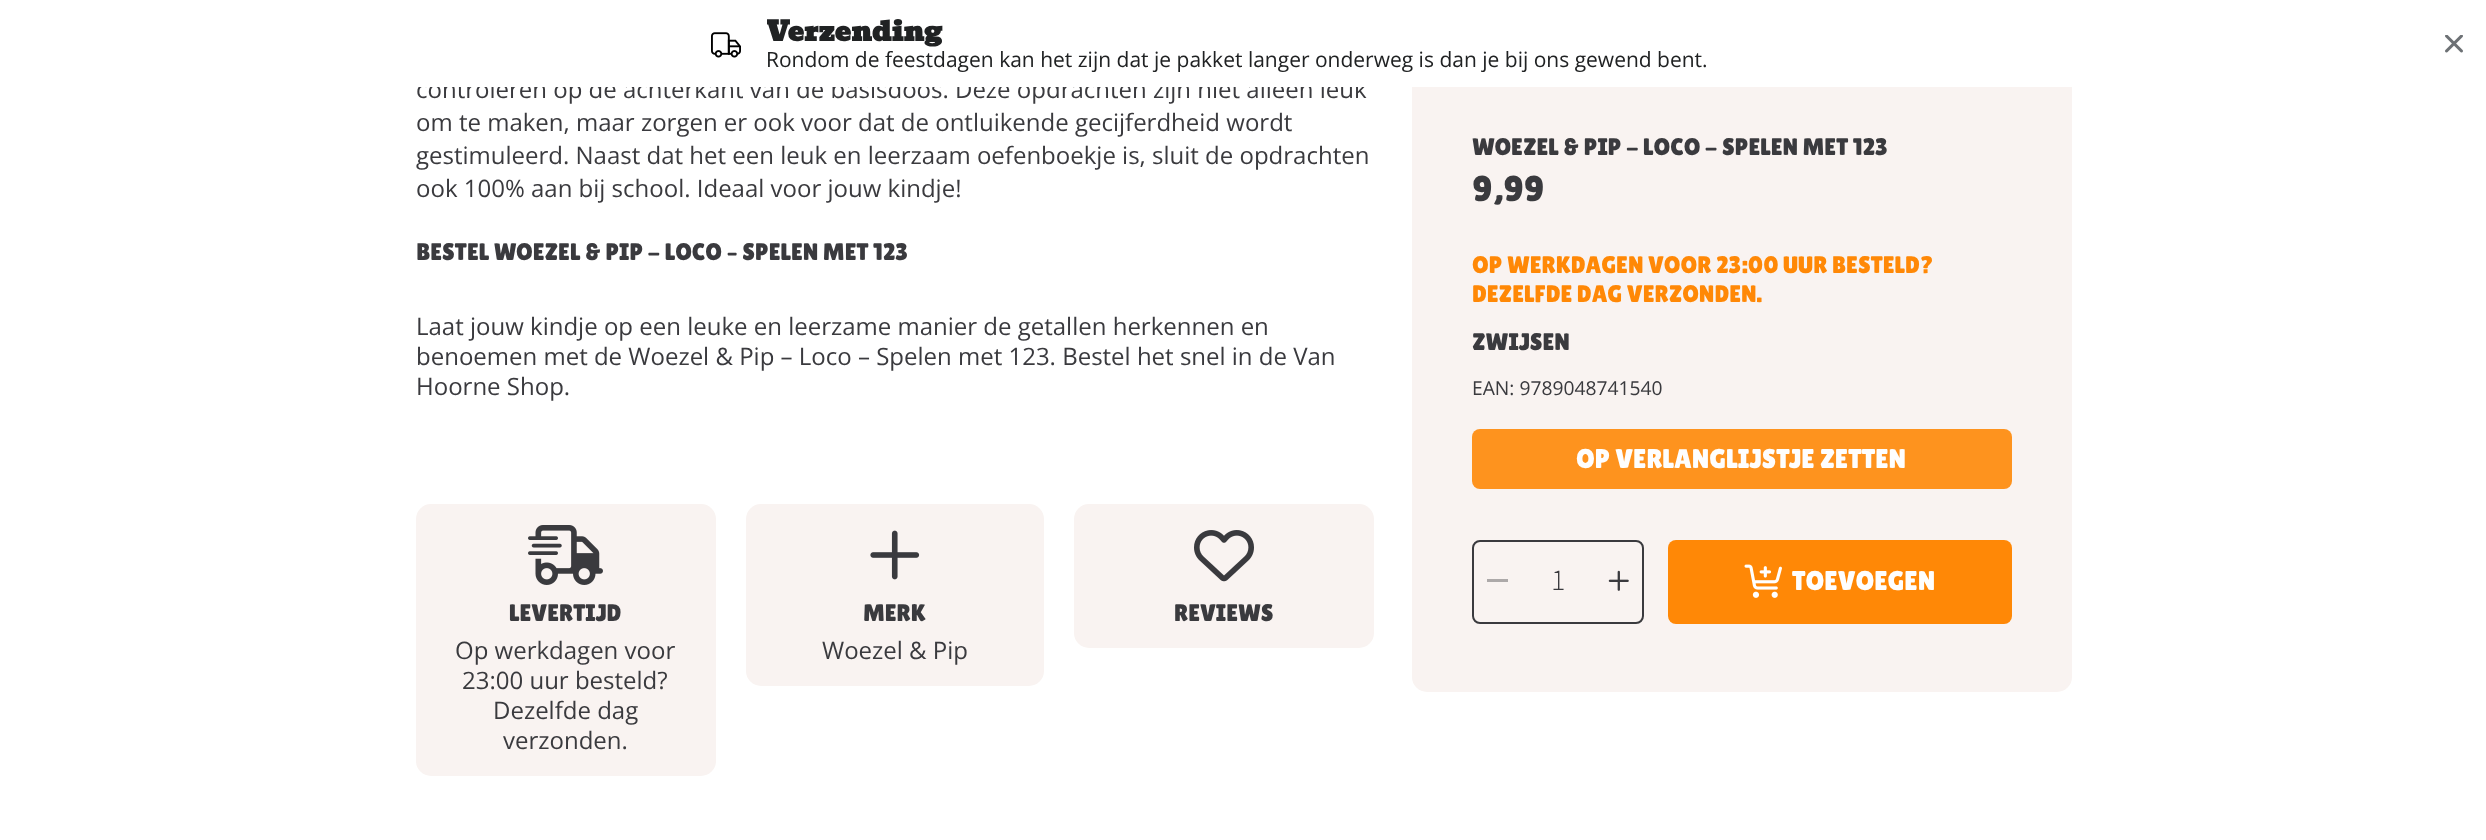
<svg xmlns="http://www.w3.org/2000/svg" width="2486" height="840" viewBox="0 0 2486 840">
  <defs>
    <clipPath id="clip1"><rect x="767" y="15" width="940" height="57"/></clipPath>
  </defs>
  <rect width="100%" height="100%" fill="#ffffff"/>
  <text x="416" y="98" font-family="Open Sans" font-size="24" fill="#3a3a3e">controleren op de achterkant van de basisdoos. Deze opdrachten zijn niet alleen leuk</text>
  <rect x="1412" y="72" width="660" height="620" rx="15" fill="#f9f3f1"/>
  <rect x="418" y="72" width="1654" height="15" fill="#ffffff"/>
  <image x="711" y="32" width="30" height="26" href="img1.png"/>
  <g clip-path="url(#clip1)">
    <text x="766" y="41" font-family="Bevan" font-size="27" font-weight="bold" fill="#202223">Verzending</text>
  </g>
  <text x="766" y="67" font-family="Open Sans" font-size="21" fill="#202223">Rondom de feestdagen kan het zijn dat je pakket langer onderweg is dan je bij ons gewend bent.</text>
  <image x="2445" y="35" width="18" height="18" href="img2.png"/>
  <text x="416" y="131" font-family="Open Sans" font-size="24" fill="#3a3a3e">om te maken, maar zorgen er ook voor dat de ontluikende gecijferdheid wordt</text>
  <text x="416" y="164" font-family="Open Sans" font-size="24" fill="#3a3a3e">gestimuleerd. Naast dat het een leuk en leerzaam oefenboekje is, sluit de opdrachten</text>
  <text x="416" y="197" font-family="Open Sans" font-size="24" fill="#3a3a3e">ook 100% aan bij school. Ideaal voor jouw kindje!</text>
  <text x="416" y="260" font-family="Lilita One" font-size="24" fill="#3a3a3e">BESTEL WOEZEL &amp; PIP - LOCO – SPELEN MET 123</text>
  <text x="416" y="335" font-family="Open Sans" font-size="24" fill="#3a3a3e">Laat jouw kindje op een leuke en leerzame manier de getallen herkennen en</text>
  <text x="416" y="365" font-family="Open Sans" font-size="24" fill="#3a3a3e">benoemen met de Woezel &amp; Pip – Loco – Spelen met 123. Bestel het snel in de Van</text>
  <text x="416" y="395" font-family="Open Sans" font-size="24" fill="#3a3a3e">Hoorne Shop.</text>
  <rect x="416" y="504" width="300" height="272" rx="15" fill="#f9f3f1"/>
  <image x="528" y="525" width="75" height="60" href="img3.png"/>
  <text x="509" y="621" font-family="Lilita One" font-size="24" fill="#3a3a3e">LEVERTIJD</text>
  <text x="455" y="659" font-family="Open Sans" font-size="24" fill="#3a3a3e">Op werkdagen voor</text>
  <text x="462" y="689" font-family="Open Sans" font-size="24" fill="#3a3a3e">23:00 uur besteld?</text>
  <text x="493" y="719" font-family="Open Sans" font-size="24" fill="#3a3a3e">Dezelfde dag</text>
  <text x="503" y="749" font-family="Open Sans" font-size="24" fill="#3a3a3e">verzonden.</text>
  <rect x="746" y="504" width="298" height="182" rx="15" fill="#f9f3f1"/>
  <image x="870" y="530" width="50" height="50" href="img4.png"/>
  <text x="863" y="621" font-family="Lilita One" font-size="24" fill="#3a3a3e">MERK</text>
  <text x="822" y="659" font-family="Open Sans" font-size="24" fill="#3a3a3e">Woezel &amp; Pip</text>
  <rect x="1074" y="504" width="300" height="144" rx="15" fill="#f9f3f1"/>
  <image x="1194" y="530" width="60" height="52" href="img5.png"/>
  <text x="1174" y="621" font-family="Lilita One" font-size="24" fill="#3a3a3e">REVIEWS</text>
  <text x="1472" y="155" font-family="Lilita One" font-size="24" fill="#3a3a3e">WOEZEL &amp; PIP - LOCO - SPELEN MET 123</text>
  <text x="1472" y="201" font-family="Lilita One" font-size="36" fill="#3a3a3e">9,99</text>
  <text x="1472" y="273" font-family="Lilita One" font-size="24" fill="#ff8806">OP WERKDAGEN VOOR 23:00 UUR BESTELD?</text>
  <text x="1472" y="302" font-family="Lilita One" font-size="24" fill="#ff8806">DEZELFDE DAG VERZONDEN.</text>
  <text x="1472" y="350" font-family="Lilita One" font-size="24" fill="#3a3a3e">ZWIJSEN</text>
  <text x="1472" y="395" font-family="Open Sans" font-size="19.25" fill="#3a3a3e">EAN: 9789048741540</text>
  <rect x="1472" y="429" width="540" height="60" rx="8" fill="#fe931e"/>
  <text x="1576" y="468" font-family="Lilita One" font-size="27" fill="#fefefe">OP VERLANGLIJSTJE ZETTEN</text>
  <rect x="1473" y="541" width="170" height="82" rx="7" fill="none" stroke="#3a3a3e" stroke-width="2"/>
  <rect x="1487" y="579" width="21" height="3" fill="#ada9a9"/>
  <text x="1551" y="590" font-family="Source Sans Pro" font-size="30" font-weight="300" fill="#3a3a3e">1</text>
  <image x="1608" y="570" width="21" height="21" href="img6.png"/>
  <rect x="1668" y="540" width="344" height="84" rx="8" fill="#ff8806"/>
  <image x="1744" y="564" width="38" height="34" href="img7.png"/>
  <text x="1792" y="590" font-family="Lilita One" font-size="27" fill="#fefefe">TOEVOEGEN</text>
</svg>
